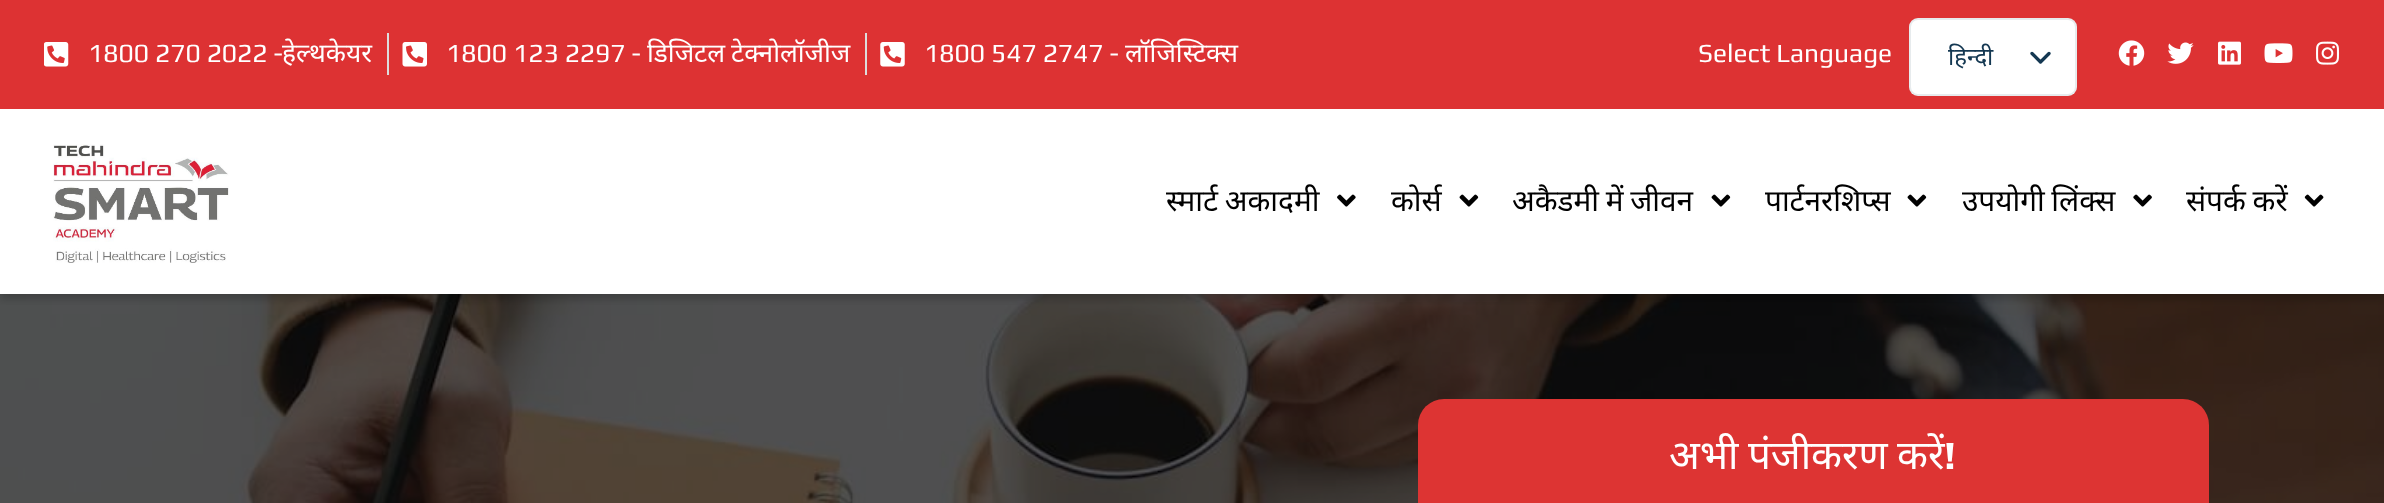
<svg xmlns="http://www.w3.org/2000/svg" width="2384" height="503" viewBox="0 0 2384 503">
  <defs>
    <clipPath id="clip1"><rect x="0" y="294" width="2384" height="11"/></clipPath>
    <filter id="blur1" x="-50%" y="-200%" width="200%" height="500%"><feGaussianBlur stdDeviation="4.5"/></filter>
  </defs>
  <rect width="100%" height="100%" fill="#ffffff"/>
  <image x="0" y="294" width="2384" height="209" href="img14.png"/>
  <g clip-path="url(#clip1)">
    <rect x="0" y="114" width="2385" height="185" fill="#000000" fill-opacity="0.2" filter="url(#blur1)"/>
  </g>
  <rect x="0" y="0" width="2384" height="109" fill="#dd3233"/>
  <image x="44" y="42" width="25" height="25" href="img1.png"/>
  <text x="88" y="62" font-family="Play" font-size="26.25" fill="#ffffff">1800 270 2022 -</text>
  <text x="282" y="62" font-family="Noto Sans" font-size="26.25" fill="#ffffff">हेल्थकेयर</text>
  <rect x="387" y="33" width="2" height="42" fill="#dddddd"/>
  <image x="402" y="42" width="25" height="25" href="img2.png"/>
  <text x="446" y="62" font-family="Play" font-size="26.25" fill="#ffffff">1800 123 2297 -</text>
  <text x="647" y="62" font-family="Noto Sans" font-size="26.25" fill="#ffffff">डिजिटल</text>
  <text x="731" y="62" font-family="Noto Sans" font-size="26.25" fill="#ffffff">टेक्नोलॉजीज</text>
  <rect x="865" y="33" width="2" height="42" fill="#dddddd"/>
  <image x="880" y="42" width="25" height="25" href="img3.png"/>
  <text x="924" y="62" font-family="Play" font-size="26.25" fill="#ffffff">1800 547 2747 -</text>
  <text x="1125" y="62" font-family="Noto Sans" font-size="26.25" fill="#ffffff">लॉजिस्टिक्स</text>
  <text x="1698" y="62" font-family="Play" font-size="26.25" fill="#ffffff">Select Language</text>
  <rect x="1909" y="18" width="168" height="78" rx="9" fill="#ffffff"/>
  <rect x="1910" y="19" width="166" height="76" rx="8" fill="none" stroke="#143852" stroke-opacity="0.1" stroke-width="2"/>
  <text x="1948" y="65" font-family="Noto Sans" font-size="24" fill="#143852">हिन्दी</text>
  <path d="M2032 53.5L2040.5 62L2049 53.5" fill="none" stroke="#143852" stroke-width="3.3" stroke-linecap="round" stroke-linejoin="round"/>
  <image x="2118" y="40" width="27" height="26" href="img4.png"/>
  <image x="2167" y="42" width="27" height="22" href="img5.png"/>
  <image x="2218" y="41" width="23" height="24" href="img6.png"/>
  <image x="2264" y="43" width="29" height="20" href="img7.png"/>
  <image x="2316" y="41" width="24" height="24" href="img8.png"/>
  <image x="53" y="144" width="176" height="119" href="img9.png"/>
  <text x="1166" y="211" word-spacing="-1" font-family="Noto Sans" font-size="29.75" fill="#000000">स्मार्ट अकादमी</text>
  <image x="1337" y="194" width="19" height="13" href="img10.png"/>
  <text x="1391" y="211" font-family="Noto Sans" font-size="29.75" fill="#000000">कोर्स</text>
  <image x="1459" y="194" width="20" height="13" href="img11.png"/>
  <text x="1512" y="211" word-spacing="-1" font-family="Noto Sans" font-size="29.75" fill="#000000">अकैडमी में जीवन</text>
  <image x="1711" y="194" width="20" height="13" href="img11.png"/>
  <text x="1765" y="211" font-family="Noto Sans" font-size="29.75" fill="#000000">पार्टनरशिप्स</text>
  <image x="1907" y="194" width="20" height="13" href="img11.png"/>
  <text x="1962" y="211" word-spacing="-1" font-family="Noto Sans" font-size="29.75" fill="#000000">उपयोगी लिंक्स</text>
  <image x="2133" y="194" width="19" height="13" href="img12.png"/>
  <text x="2186" y="211" word-spacing="-1" font-family="Noto Sans" font-size="29.75" fill="#000000">संपर्क करें</text>
  <image x="2304" y="194" width="20" height="13" href="img13.png"/>
  <rect x="1418" y="399" width="791" height="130" rx="26" fill="#dd3433"/>
  <text x="1669" y="469" word-spacing="-1" font-family="Noto Sans" font-size="40.25" fill="#ffffff">अभी पंजीकरण करें</text>
  <text x="1944" y="469" font-family="Play" font-size="40.25" font-weight="bold" fill="#ffffff">!</text>
</svg>
